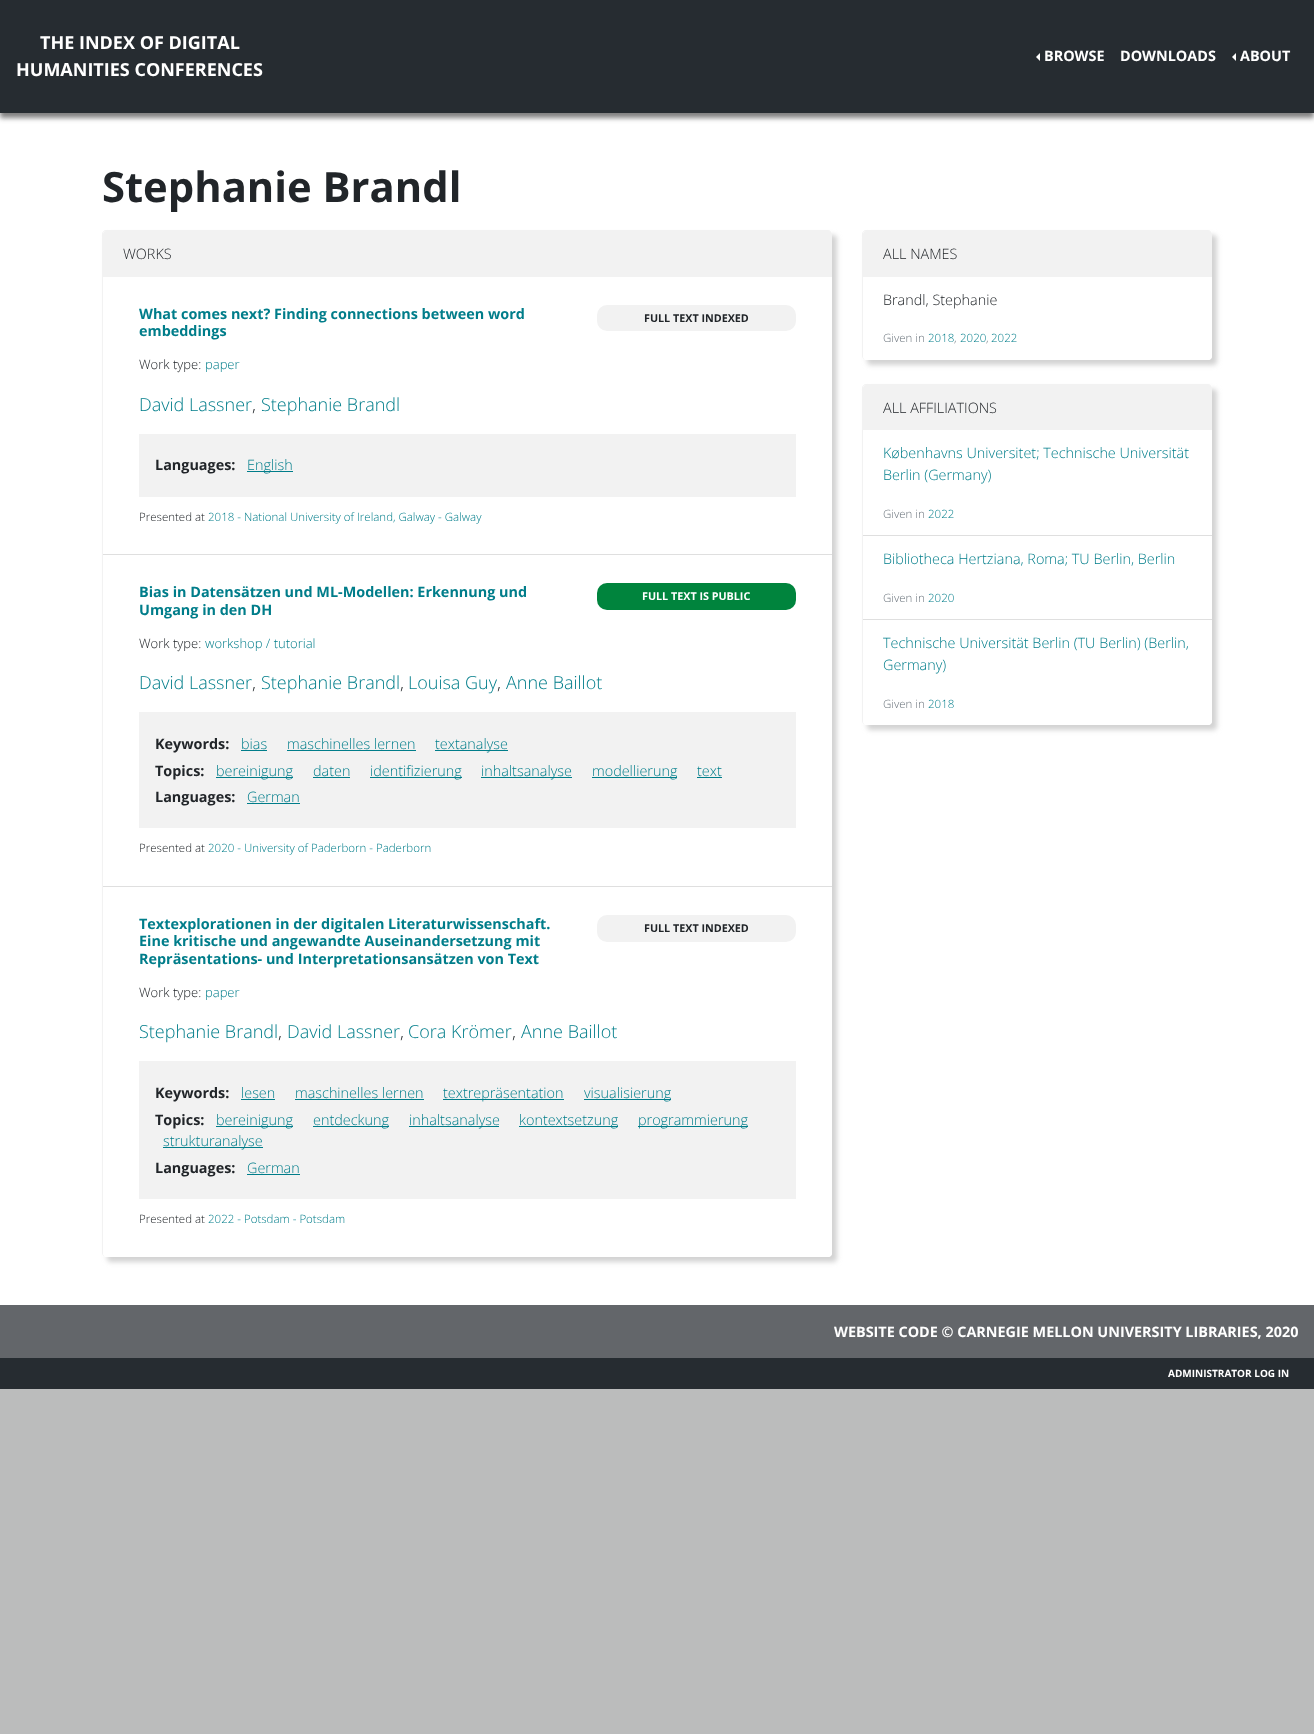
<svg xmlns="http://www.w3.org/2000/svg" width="1314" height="1734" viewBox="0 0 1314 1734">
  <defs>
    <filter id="blur1" x="-50%" y="-200%" width="200%" height="500%"><feGaussianBlur stdDeviation="2.5"/></filter>
  </defs>
  <rect width="100%" height="100%" fill="#bbbcbc"/>
  <rect x="0" y="113" width="1314" height="1192" fill="#ffffff"/>
  <rect x="0" y="5" width="1314" height="113" fill="#808080" filter="url(#blur1)"/>
  <rect x="0" y="0" width="1314" height="113" fill="#262c31"/>
  <text x="40" y="49" font-family="Open Sans" font-size="18" font-weight="bold" fill="#ffffff">THE INDEX OF DIGITAL</text>
  <text x="16" y="76" font-family="Open Sans" font-size="18" font-weight="bold" fill="#ffffff">HUMANITIES CONFERENCES</text>
  <path d="M1040 53V61L1036 57Z" fill="#ffffff"/>
  <text x="1044" y="61" font-family="Open Sans" font-size="14.4" font-weight="bold" fill="#ffffff">BROWSE</text>
  <text x="1120" y="61" font-family="Open Sans" font-size="14.4" font-weight="bold" fill="#ffffff">DOWNLOADS</text>
  <path d="M1236 53V61L1232 57Z" fill="#ffffff"/>
  <text x="1240" y="61" font-family="Open Sans" font-size="14.4" font-weight="bold" fill="#ffffff">ABOUT</text>
  <text x="102" y="202" font-family="Open Sans" font-size="41.75" font-weight="bold" fill="#212529">Stephanie Brandl</text>
  <rect x="107" y="235" width="730" height="1027" rx="4" fill="#d3d3d3" filter="url(#blur1)"/>
  <rect x="102" y="230" width="730" height="1027" rx="4" fill="#ffffff"/>
  <path d="M106 230H828C830 230 832 232 832 234V1253C832 1255 830 1257 828 1257H106C104 1257 102 1255 102 1253V234C102 232 104 230 106 230ZM106 231H828C830 231 832 232 832 234V1253C832 1255 830 1257 828 1257H106C104 1257 103 1255 103 1253V234C103 232 104 231 106 231Z" fill="#f2f2f2" fill-rule="evenodd"/>
  <path d="M106 231H829C830.5 231 832 232.5 832 234V277H103V234C103 232.5 104.5 231 106 231Z" fill="#f2f2f2"/>
  <text x="123" y="259" font-family="Open Sans" font-size="14.4" font-weight="300" fill="#212529">WORKS</text>
  <rect x="103" y="554" width="729" height="1" fill="#dfdfdf"/>
  <text x="139" y="319" font-family="Open Sans" font-size="14.4" font-weight="bold" fill="#007d8a">What comes next? Finding connections between word</text>
  <text x="139" y="336" font-family="Open Sans" font-size="14.4" font-weight="bold" fill="#007d8a">embeddings</text>
  <rect x="597" y="305" width="199" height="26" rx="10" fill="#f2f2f2"/>
  <text x="644" y="322" font-family="Open Sans" font-size="10.75" font-weight="bold" fill="#212529">FULL TEXT INDEXED</text>
  <text x="139" y="369" font-family="Open Sans" font-size="13" font-weight="300" fill="#212529">Work type:</text>
  <text x="205" y="369" font-family="Open Sans" font-size="13" font-weight="300" fill="#007d8a">paper</text>
  <text x="139" y="411" font-family="Open Sans" font-size="18" font-weight="300" fill="#007d8a">David Lassner</text>
  <text x="252" y="411" font-family="Open Sans" font-size="18" font-weight="300" fill="#212529">,</text>
  <text x="261" y="411" font-family="Open Sans" font-size="18" font-weight="300" fill="#007d8a">Stephanie Brandl</text>
  <rect x="139" y="434" width="657" height="63" fill="#f2f2f2"/>
  <text x="155" y="470" font-family="Open Sans" font-size="14.4" font-weight="bold" fill="#212529">Languages:</text>
  <rect x="247" y="471" width="46" height="1" fill="#007d8a"/>
  <text x="247" y="470" font-family="Open Sans" font-size="14.4" font-weight="300" fill="#007d8a">English</text>
  <text x="139" y="521" font-family="Open Sans" font-size="11.5" font-weight="300" fill="#212529">Presented at</text>
  <text x="208" y="521" font-family="Open Sans" font-size="11.5" font-weight="300" fill="#007d8a">2018 - National University of Ireland, Galway - Galway</text>
  <rect x="103" y="886" width="729" height="1" fill="#dfdfdf"/>
  <text x="139" y="597" font-family="Open Sans" font-size="14.4" font-weight="bold" fill="#007d8a">Bias in Datensätzen und ML-Modellen: Erkennung und</text>
  <text x="139" y="615" font-family="Open Sans" font-size="14.4" font-weight="bold" fill="#007d8a">Umgang in den DH</text>
  <rect x="597" y="583" width="199" height="27" rx="10" fill="#00843d"/>
  <text x="642" y="600" font-family="Open Sans" font-size="10.75" font-weight="bold" fill="#ffffff">FULL TEXT IS PUBLIC</text>
  <text x="139" y="648" font-family="Open Sans" font-size="13" font-weight="300" fill="#212529">Work type:</text>
  <text x="205" y="648" font-family="Open Sans" font-size="13" font-weight="300" fill="#007d8a">workshop / tutorial</text>
  <text x="139" y="689" font-family="Open Sans" font-size="18" font-weight="300" fill="#007d8a">David Lassner</text>
  <text x="252" y="689" font-family="Open Sans" font-size="18" font-weight="300" fill="#212529">,</text>
  <text x="261" y="689" font-family="Open Sans" font-size="18" font-weight="300" fill="#007d8a">Stephanie Brandl</text>
  <text x="400" y="689" font-family="Open Sans" font-size="18" font-weight="300" fill="#212529">,</text>
  <text x="408" y="689" font-family="Open Sans" font-size="18" font-weight="300" fill="#007d8a">Louisa Guy</text>
  <text x="497" y="689" font-family="Open Sans" font-size="18" font-weight="300" fill="#212529">,</text>
  <text x="506" y="689" font-family="Open Sans" font-size="18" font-weight="300" fill="#007d8a">Anne Baillot</text>
  <rect x="139" y="712" width="657" height="116" fill="#f2f2f2"/>
  <text x="155" y="749" font-family="Open Sans" font-size="14.4" font-weight="bold" fill="#212529">Keywords:</text>
  <text x="241" y="749" font-family="Open Sans" font-size="14.4" font-weight="300" fill="#007d8a">bias</text>
  <rect x="241" y="750" width="26" height="1" fill="#007d8a"/>
  <text x="287" y="749" font-family="Open Sans" font-size="14.4" font-weight="300" fill="#007d8a">maschinelles lernen</text>
  <rect x="287" y="750" width="129" height="1" fill="#007d8a"/>
  <rect x="435" y="750" width="73" height="1" fill="#007d8a"/>
  <text x="435" y="749" font-family="Open Sans" font-size="14.4" font-weight="300" fill="#007d8a">textanalyse</text>
  <text x="155" y="776" font-family="Open Sans" font-size="14.4" font-weight="bold" fill="#212529">Topics:</text>
  <rect x="216" y="777" width="77" height="1" fill="#007d8a"/>
  <text x="216" y="776" font-family="Open Sans" font-size="14.4" font-weight="300" fill="#007d8a">bereinigung</text>
  <text x="313" y="776" font-family="Open Sans" font-size="14.4" font-weight="300" fill="#007d8a">daten</text>
  <rect x="313" y="777" width="37" height="1" fill="#007d8a"/>
  <rect x="370" y="777" width="92" height="1" fill="#007d8a"/>
  <text x="370" y="776" font-family="Open Sans" font-size="14.4" font-weight="300" fill="#007d8a">identifizierung</text>
  <rect x="481" y="777" width="91" height="1" fill="#007d8a"/>
  <text x="481" y="776" font-family="Open Sans" font-size="14.4" font-weight="300" fill="#007d8a">inhaltsanalyse</text>
  <rect x="592" y="777" width="85" height="1" fill="#007d8a"/>
  <text x="592" y="776" font-family="Open Sans" font-size="14.4" font-weight="300" fill="#007d8a">modellierung</text>
  <text x="697" y="776" font-family="Open Sans" font-size="14.4" font-weight="300" fill="#007d8a">text</text>
  <rect x="697" y="777" width="25" height="1" fill="#007d8a"/>
  <text x="155" y="802" font-family="Open Sans" font-size="14.4" font-weight="bold" fill="#212529">Languages:</text>
  <text x="247" y="802" font-family="Open Sans" font-size="14.4" font-weight="300" fill="#007d8a">German</text>
  <rect x="247" y="803" width="53" height="1" fill="#007d8a"/>
  <text x="139" y="852" font-family="Open Sans" font-size="11.5" font-weight="300" fill="#212529">Presented at</text>
  <text x="208" y="852" font-family="Open Sans" font-size="11.5" font-weight="300" fill="#007d8a">2020 - University of Paderborn - Paderborn</text>
  <path d="M103 887H832V1253C832 1255 830 1257 828 1257H107C105 1257 103 1255 103 1253Z" fill="#ffffff"/>
  <text x="139" y="929" font-family="Open Sans" font-size="14.4" font-weight="bold" fill="#007d8a">Textexplorationen in der digitalen Literaturwissenschaft.</text>
  <text x="139" y="946" font-family="Open Sans" font-size="14.4" font-weight="bold" fill="#007d8a">Eine kritische und angewandte Auseinandersetzung mit</text>
  <text x="139" y="964" font-family="Open Sans" font-size="14.4" font-weight="bold" fill="#007d8a">Repräsentations- und Interpretationsansätzen von Text</text>
  <rect x="597" y="915" width="199" height="27" rx="10" fill="#f2f2f2"/>
  <text x="644" y="932" font-family="Open Sans" font-size="10.75" font-weight="bold" fill="#212529">FULL TEXT INDEXED</text>
  <text x="139" y="997" font-family="Open Sans" font-size="13" font-weight="300" fill="#212529">Work type:</text>
  <text x="205" y="997" font-family="Open Sans" font-size="13" font-weight="300" fill="#007d8a">paper</text>
  <text x="139" y="1038" font-family="Open Sans" font-size="18" font-weight="300" fill="#007d8a">Stephanie Brandl</text>
  <text x="278" y="1038" font-family="Open Sans" font-size="18" font-weight="300" fill="#212529">,</text>
  <text x="287" y="1038" font-family="Open Sans" font-size="18" font-weight="300" fill="#007d8a">David Lassner</text>
  <text x="400" y="1038" font-family="Open Sans" font-size="18" font-weight="300" fill="#212529">,</text>
  <text x="408" y="1038" font-family="Open Sans" font-size="18" font-weight="300" fill="#007d8a">Cora Krömer</text>
  <text x="512" y="1038" font-family="Open Sans" font-size="18" font-weight="300" fill="#212529">,</text>
  <text x="521" y="1038" font-family="Open Sans" font-size="18" font-weight="300" fill="#007d8a">Anne Baillot</text>
  <rect x="139" y="1061" width="657" height="138" fill="#f2f2f2"/>
  <text x="155" y="1098" font-family="Open Sans" font-size="14.4" font-weight="bold" fill="#212529">Keywords:</text>
  <text x="241" y="1098" font-family="Open Sans" font-size="14.4" font-weight="300" fill="#007d8a">lesen</text>
  <rect x="241" y="1099" width="34" height="1" fill="#007d8a"/>
  <text x="295" y="1098" font-family="Open Sans" font-size="14.4" font-weight="300" fill="#007d8a">maschinelles lernen</text>
  <rect x="295" y="1099" width="129" height="1" fill="#007d8a"/>
  <rect x="443" y="1099" width="121" height="1" fill="#007d8a"/>
  <text x="443" y="1098" font-family="Open Sans" font-size="14.4" font-weight="300" fill="#007d8a">textrepräsentation</text>
  <rect x="584" y="1099" width="87" height="1" fill="#007d8a"/>
  <text x="584" y="1098" font-family="Open Sans" font-size="14.4" font-weight="300" fill="#007d8a">visualisierung</text>
  <text x="155" y="1125" font-family="Open Sans" font-size="14.4" font-weight="bold" fill="#212529">Topics:</text>
  <rect x="216" y="1126" width="77" height="1" fill="#007d8a"/>
  <text x="216" y="1125" font-family="Open Sans" font-size="14.4" font-weight="300" fill="#007d8a">bereinigung</text>
  <rect x="313" y="1126" width="76" height="1" fill="#007d8a"/>
  <text x="313" y="1125" font-family="Open Sans" font-size="14.4" font-weight="300" fill="#007d8a">entdeckung</text>
  <rect x="409" y="1126" width="90" height="1" fill="#007d8a"/>
  <text x="409" y="1125" font-family="Open Sans" font-size="14.4" font-weight="300" fill="#007d8a">inhaltsanalyse</text>
  <rect x="519" y="1126" width="99" height="1" fill="#007d8a"/>
  <text x="519" y="1125" font-family="Open Sans" font-size="14.4" font-weight="300" fill="#007d8a">kontextsetzung</text>
  <rect x="638" y="1126" width="110" height="1" fill="#007d8a"/>
  <text x="638" y="1125" font-family="Open Sans" font-size="14.4" font-weight="300" fill="#007d8a">programmierung</text>
  <rect x="163" y="1147" width="100" height="1" fill="#007d8a"/>
  <text x="163" y="1146" font-family="Open Sans" font-size="14.4" font-weight="300" fill="#007d8a">strukturanalyse</text>
  <text x="155" y="1173" font-family="Open Sans" font-size="14.4" font-weight="bold" fill="#212529">Languages:</text>
  <text x="247" y="1173" font-family="Open Sans" font-size="14.4" font-weight="300" fill="#007d8a">German</text>
  <rect x="247" y="1174" width="53" height="1" fill="#007d8a"/>
  <text x="139" y="1223" font-family="Open Sans" font-size="11.5" font-weight="300" fill="#212529">Presented at</text>
  <text x="208" y="1223" font-family="Open Sans" font-size="11.5" font-weight="300" fill="#007d8a">2022 - Potsdam - Potsdam</text>
  <rect x="867" y="235" width="350" height="130" rx="4" fill="#d3d3d3" filter="url(#blur1)"/>
  <rect x="862" y="230" width="350" height="130" rx="4" fill="#ffffff"/>
  <path d="M866 230H1208C1210 230 1212 232 1212 234V356C1212 358 1210 360 1208 360H866C864 360 862 358 862 356V234C862 232 864 230 866 230ZM866 231H1208C1210 231 1212 232 1212 234V356C1212 358 1210 360 1208 360H866C864 360 863 358 863 356V234C863 232 864 231 866 231Z" fill="#f2f2f2" fill-rule="evenodd"/>
  <path d="M866 231H1209C1210.5 231 1212 232.5 1212 234V277H863V234C863 232.5 864.5 231 866 231Z" fill="#f2f2f2"/>
  <text x="883" y="259" font-family="Open Sans" font-size="14.4" font-weight="300" fill="#212529">ALL NAMES</text>
  <path d="M863 277H1212V356C1212 358 1210 360 1208 360H867C865 360 863 358 863 356Z" fill="#ffffff"/>
  <text x="883" y="305" font-family="Open Sans" font-size="14.4" font-weight="300" fill="#212529">Brandl, Stephanie</text>
  <text x="883" y="342" font-family="Open Sans" font-size="11.5" font-weight="300" fill="#6c757d">Given in</text>
  <text x="928" y="342" font-family="Open Sans" font-size="11.5" font-weight="300" fill="#007d8a">2018</text>
  <text x="954" y="342" font-family="Open Sans" font-size="11.5" font-weight="300" fill="#6c757d">,</text>
  <text x="960" y="342" font-family="Open Sans" font-size="11.5" font-weight="300" fill="#007d8a">2020</text>
  <text x="986" y="342" font-family="Open Sans" font-size="11.5" font-weight="300" fill="#6c757d">,</text>
  <text x="991" y="342" font-family="Open Sans" font-size="11.5" font-weight="300" fill="#007d8a">2022</text>
  <rect x="867" y="389" width="350" height="341" rx="4" fill="#d3d3d3" filter="url(#blur1)"/>
  <rect x="862" y="384" width="350" height="341" rx="4" fill="#ffffff"/>
  <path d="M866 384H1208C1210 384 1212 386 1212 388V721C1212 723 1210 725 1208 725H866C864 725 862 723 862 721V388C862 386 864 384 866 384ZM866 385H1208C1210 385 1212 386 1212 388V721C1212 723 1210 725 1208 725H866C864 725 863 723 863 721V388C863 386 864 385 866 385Z" fill="#f2f2f2" fill-rule="evenodd"/>
  <path d="M866 385H1209C1210.5 385 1212 386.5 1212 388V430H863V388C863 386.5 864.5 385 866 385Z" fill="#f2f2f2"/>
  <text x="883" y="413" font-family="Open Sans" font-size="14.4" font-weight="300" fill="#212529">ALL AFFILIATIONS</text>
  <rect x="863" y="535" width="349" height="1" fill="#dfdfdf"/>
  <text x="883" y="458" font-family="Open Sans" font-size="14.4" font-weight="300" fill="#007d8a">Københavns Universitet; Technische Universität</text>
  <text x="883" y="480" font-family="Open Sans" font-size="14.4" font-weight="300" fill="#007d8a">Berlin (Germany)</text>
  <text x="883" y="518" font-family="Open Sans" font-size="11.5" font-weight="300" fill="#6c757d">Given in</text>
  <text x="928" y="518" font-family="Open Sans" font-size="11.5" font-weight="300" fill="#007d8a">2022</text>
  <rect x="863" y="619" width="349" height="1" fill="#dfdfdf"/>
  <text x="883" y="564" font-family="Open Sans" font-size="14.4" font-weight="300" fill="#007d8a">Bibliotheca Hertziana, Roma; TU Berlin, Berlin</text>
  <text x="883" y="602" font-family="Open Sans" font-size="11.5" font-weight="300" fill="#6c757d">Given in</text>
  <text x="928" y="602" font-family="Open Sans" font-size="11.5" font-weight="300" fill="#007d8a">2020</text>
  <path d="M863 620H1212V721C1212 723 1210 725 1208 725H867C865 725 863 723 863 721Z" fill="#ffffff"/>
  <text x="883" y="648" font-family="Open Sans" font-size="14.4" font-weight="300" fill="#007d8a">Technische Universität Berlin (TU Berlin) (Berlin,</text>
  <text x="883" y="670" font-family="Open Sans" font-size="14.4" font-weight="300" fill="#007d8a">Germany)</text>
  <text x="883" y="708" font-family="Open Sans" font-size="11.5" font-weight="300" fill="#6c757d">Given in</text>
  <text x="928" y="708" font-family="Open Sans" font-size="11.5" font-weight="300" fill="#007d8a">2018</text>
  <rect x="0" y="1305" width="1314" height="53" fill="#63666a"/>
  <text x="834" y="1337" font-family="Open Sans" font-size="14.4" font-weight="bold" fill="#ffffff">WEBSITE CODE © CARNEGIE MELLON UNIVERSITY LIBRARIES, 2020</text>
  <rect x="0" y="1358" width="1314" height="31" fill="#262c31"/>
  <text x="1168" y="1377" font-family="Open Sans" font-size="10" font-weight="bold" fill="#ffffff">ADMINISTRATOR LOG IN</text>
</svg>
